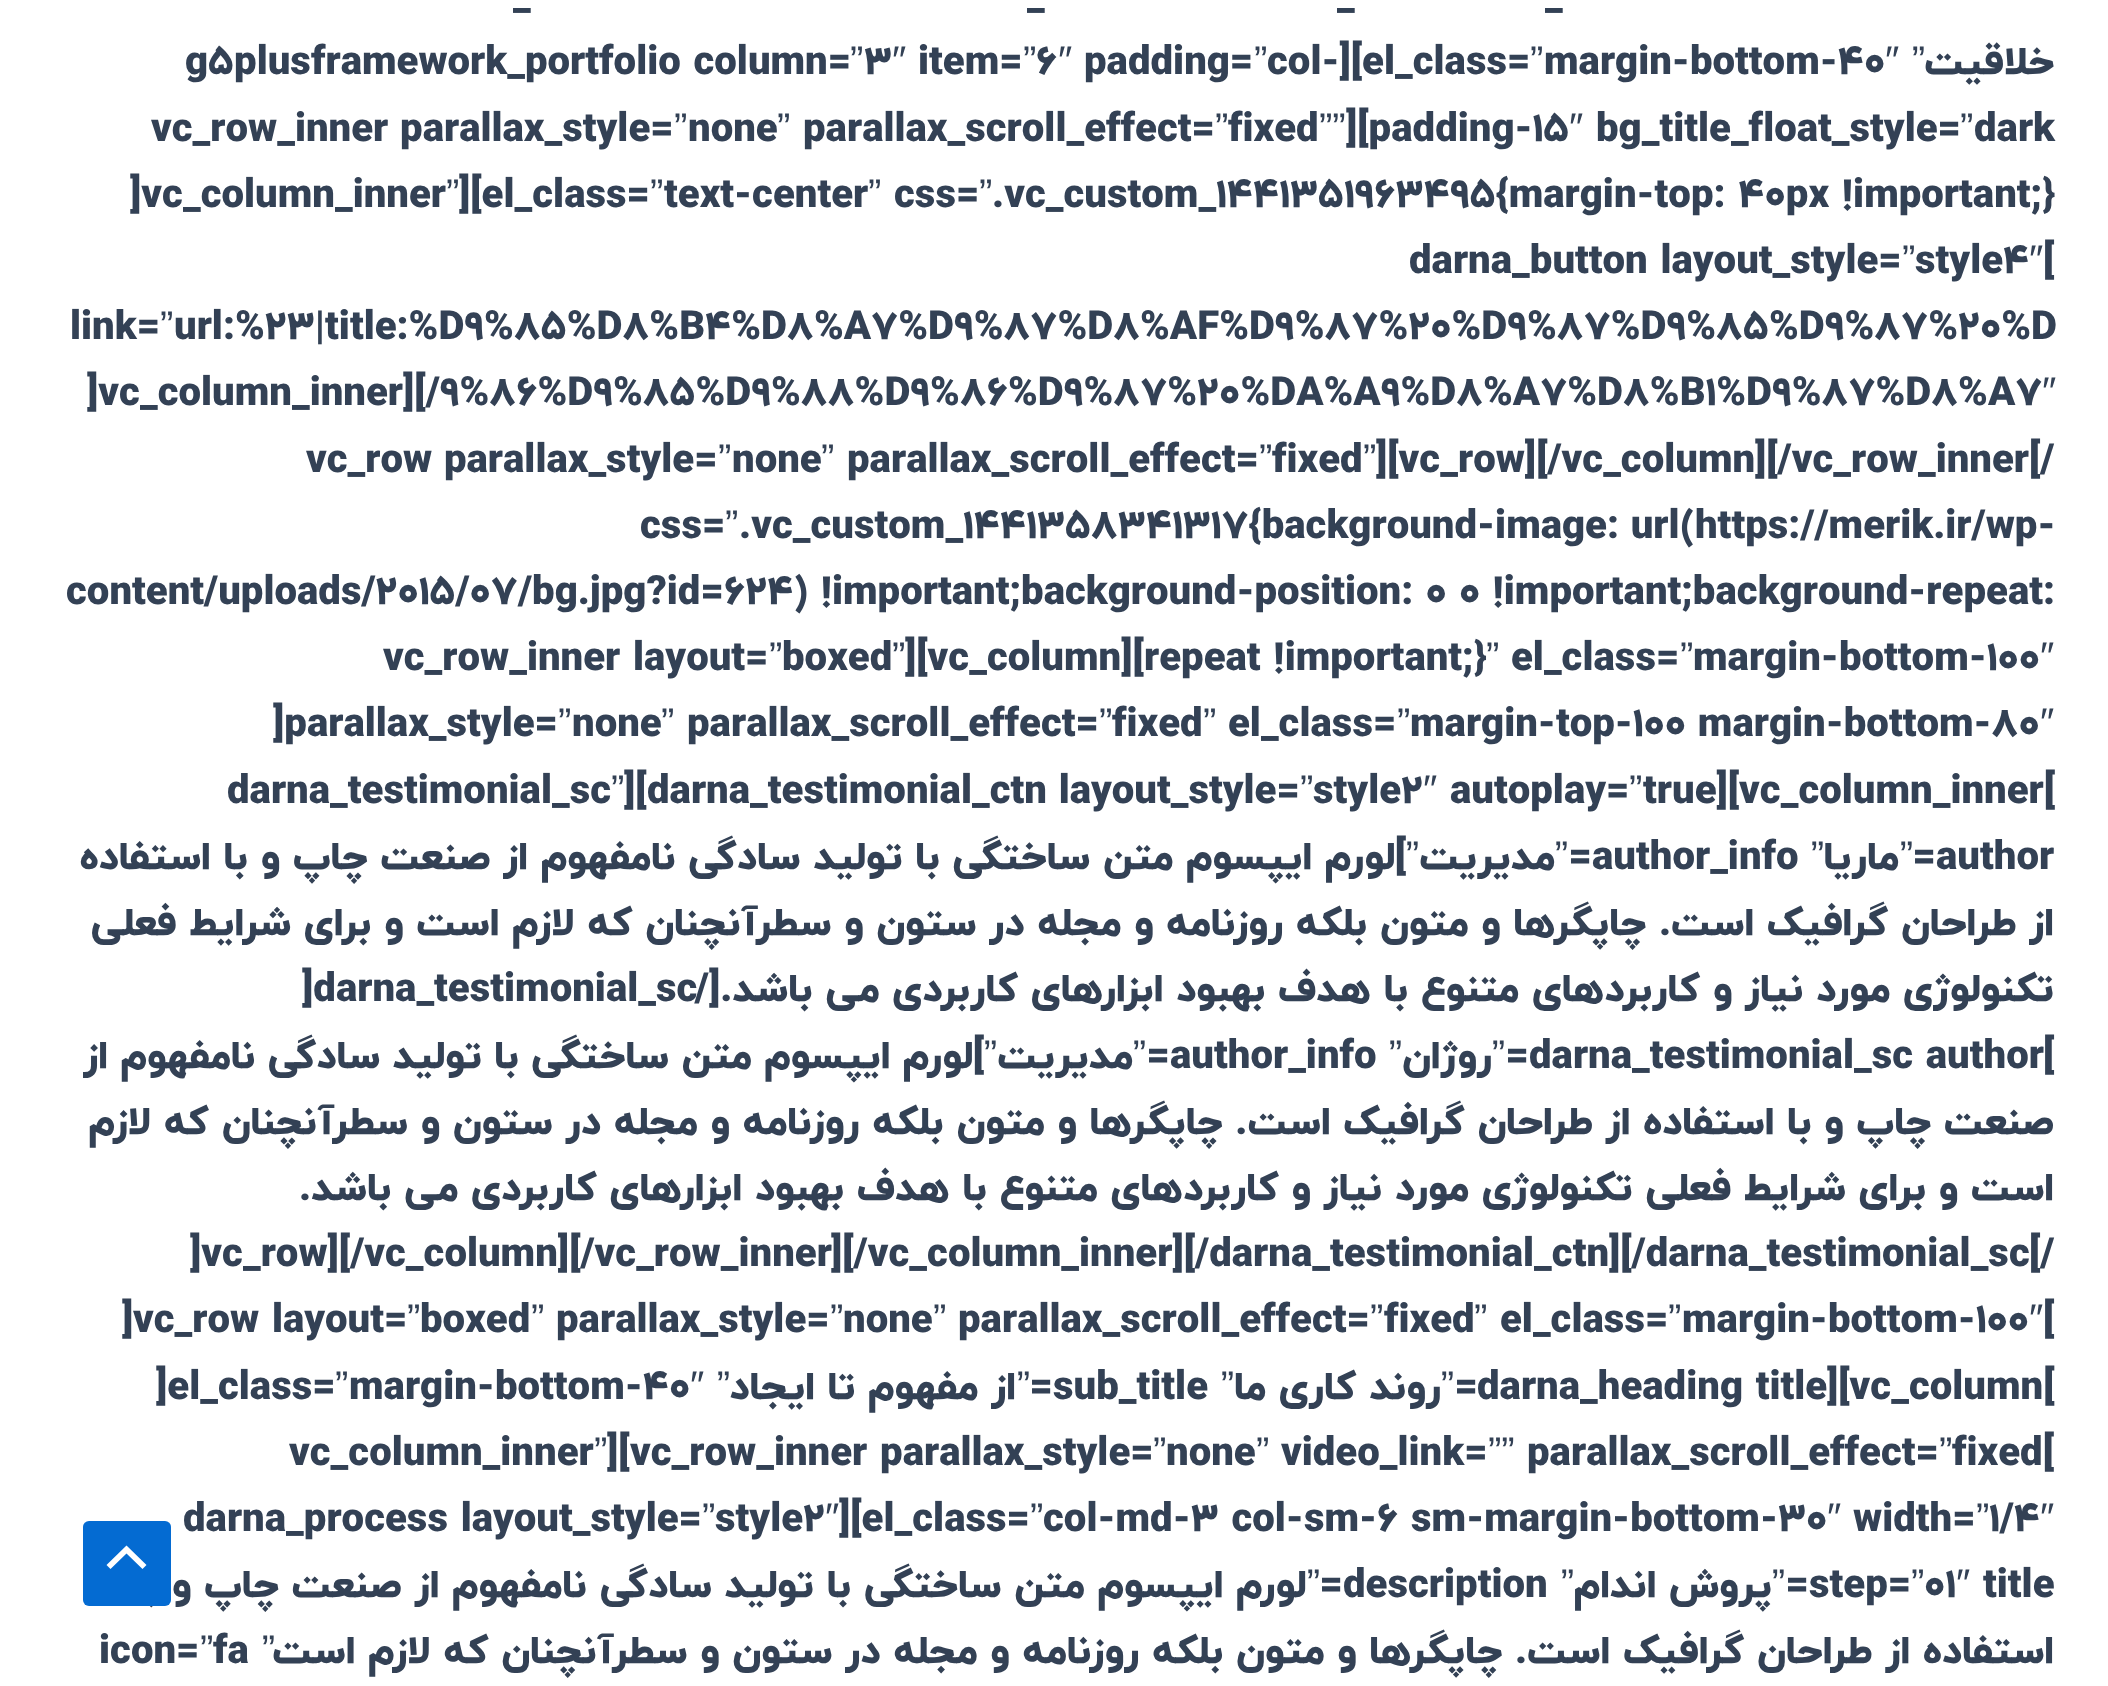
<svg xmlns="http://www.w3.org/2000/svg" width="2108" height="1686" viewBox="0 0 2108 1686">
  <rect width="100%" height="100%" fill="#ffffff"/>
  <text x="513" y="8" font-family="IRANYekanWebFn" font-size="40.15" font-weight="800" fill="#334155">_</text>
  <text x="1027" y="8" font-family="IRANYekanWebFn" font-size="40.15" font-weight="800" fill="#334155">_</text>
  <text x="1337" y="8" font-family="IRANYekanWebFn" font-size="40.15" font-weight="800" fill="#334155">_</text>
  <text x="1545" y="8" font-family="IRANYekanWebFn" font-size="40.15" font-weight="800" fill="#334155">_</text>
  <text x="185" y="74" font-family="IRANYekanWebFn" font-size="40.15" font-weight="800" fill="#334155">g5plusframework_portfolio column=</text>
  <text x="850" y="74" font-family="Liberation Sans" font-size="40.15" fill="#334155">”</text>
  <text x="864" y="74" font-family="IRANYekanWebFn" font-size="40.15" font-weight="800" fill="#334155">3</text>
  <text x="892" y="74" font-family="Liberation Sans" font-size="40.15" fill="#334155">″</text>
  <text x="918" y="74" font-family="IRANYekanWebFn" font-size="40.15" font-weight="800" fill="#334155">item=</text>
  <text x="1023" y="74" font-family="Liberation Sans" font-size="40.15" fill="#334155">”</text>
  <text x="1036" y="74" font-family="IRANYekanWebFn" font-size="40.15" font-weight="800" fill="#334155">6</text>
  <text x="1058" y="74" font-family="Liberation Sans" font-size="40.15" fill="#334155">″</text>
  <text x="1084" y="74" font-family="IRANYekanWebFn" font-size="40.15" font-weight="800" fill="#334155">padding=</text>
  <text x="1254" y="74" font-family="Liberation Sans" font-size="40.15" fill="#334155">”</text>
  <text x="1267" y="74" font-family="IRANYekanWebFn" font-size="40.15" font-weight="800" fill="#334155">col-][el_class=</text>
  <text x="1530" y="74" font-family="Liberation Sans" font-size="40.15" fill="#334155">”</text>
  <text x="1544" y="74" font-family="IRANYekanWebFn" font-size="40.15" font-weight="800" fill="#334155">margin-bottom-40</text>
  <text x="1885" y="74" font-family="Liberation Sans" font-size="40.15" fill="#334155">″</text>
  <text x="1925" y="74" font-family="Liberation Sans" font-size="40.15" direction="rtl" fill="#334155">”</text>
  <text x="2054" y="74" font-family="IRANYekanWebFn" font-size="40.15" font-weight="800" direction="rtl" fill="#334155">خلاقیت</text>
  <text x="151" y="141" word-spacing="-1" font-family="IRANYekanWebFn" font-size="40.15" font-weight="800" fill="#334155">vc_row_inner parallax_style=</text>
  <text x="674" y="141" font-family="Liberation Sans" font-size="40.15" fill="#334155">”</text>
  <text x="777" y="141" font-family="Liberation Sans" font-size="40.15" fill="#334155">”</text>
  <text x="803" y="141" font-family="IRANYekanWebFn" font-size="40.15" font-weight="800" fill="#334155">parallax_scroll_effect=</text>
  <text x="1215" y="141" font-family="Liberation Sans" font-size="40.15" fill="#334155">”</text>
  <text x="1228" y="141" font-family="IRANYekanWebFn" font-size="40.15" font-weight="800" fill="#334155">fixed</text>
  <text x="1319" y="141" font-family="Liberation Sans" font-size="40.15" fill="#334155">””</text>
  <text x="1346" y="141" font-family="IRANYekanWebFn" font-size="40.15" font-weight="800" fill="#334155">][padding-15</text>
  <text x="1569" y="141" font-family="Liberation Sans" font-size="40.15" fill="#334155">″</text>
  <text x="1596" y="141" font-family="IRANYekanWebFn" font-size="40.15" font-weight="800" fill="#334155">bg_title_float_style=</text>
  <text x="1960" y="141" font-family="Liberation Sans" font-size="40.15" fill="#334155">”</text>
  <text x="1974" y="141" font-family="IRANYekanWebFn" font-size="40.15" font-weight="800" fill="#334155">dark</text>
  <text x="688" y="141" font-family="IRANYekanWebFn" font-size="40.15" font-weight="800" fill="#334155">none</text>
  <text x="130" y="207" font-family="IRANYekanWebFn" font-size="40.15" font-weight="800" fill="#334155">]vc_column_inner</text>
  <text x="446" y="207" font-family="Liberation Sans" font-size="40.15" fill="#334155">”</text>
  <text x="459" y="207" font-family="IRANYekanWebFn" font-size="40.15" font-weight="800" fill="#334155">][el_class=</text>
  <text x="650" y="207" font-family="Liberation Sans" font-size="40.15" fill="#334155">”</text>
  <text x="664" y="207" font-family="IRANYekanWebFn" font-size="40.15" font-weight="800" fill="#334155">text-center</text>
  <text x="868" y="207" font-family="Liberation Sans" font-size="40.15" fill="#334155">”</text>
  <text x="894" y="207" font-family="IRANYekanWebFn" font-size="40.15" font-weight="800" fill="#334155">css=</text>
  <text x="979" y="207" font-family="Liberation Sans" font-size="40.15" fill="#334155">”</text>
  <text x="992" y="207" font-family="IRANYekanWebFn" font-size="40.15" font-weight="800" fill="#334155">.vc_custom_1441351963495{margin-top: 40px !important;}</text>
  <text x="1409" y="273" font-family="IRANYekanWebFn" font-size="40.15" font-weight="800" fill="#334155">darna_button layout_style=</text>
  <text x="1902" y="273" font-family="Liberation Sans" font-size="40.15" fill="#334155">”</text>
  <text x="1915" y="273" font-family="IRANYekanWebFn" font-size="40.15" font-weight="800" fill="#334155">style4</text>
  <text x="2029" y="273" font-family="Liberation Sans" font-size="40.15" fill="#334155">″</text>
  <text x="2043" y="273" font-family="IRANYekanWebFn" font-size="40.15" font-weight="800" fill="#334155">[</text>
  <text x="70" y="339" font-family="IRANYekanWebFn" font-size="40.15" font-weight="800" fill="#334155">link=</text>
  <text x="160" y="339" font-family="Liberation Sans" font-size="40.15" fill="#334155">”</text>
  <text x="174" y="339" font-family="IRANYekanWebFn" font-size="40.15" font-weight="800" fill="#334155">url:%23|title:%D9%85%D8%B4%D8%A7%D9%87%D8%AF%D9%87%20%D9%87%D9%85%D9%87%20%D</text>
  <text x="87" y="405" font-family="IRANYekanWebFn" font-size="40.15" font-weight="800" fill="#334155">]vc_column_inner][/9%86%D9%85%D9%88%D9%86%D9%87%20%DA%A9%D8%A7%D8%B1%D9%87%D8%A7</text>
  <text x="2042" y="405" font-family="Liberation Sans" font-size="40.15" fill="#334155">″</text>
  <text x="306" y="472" word-spacing="-1" font-family="IRANYekanWebFn" font-size="40.15" font-weight="800" fill="#334155">vc_row parallax_style=</text>
  <text x="718" y="472" font-family="Liberation Sans" font-size="40.15" fill="#334155">”</text>
  <text x="821" y="472" font-family="Liberation Sans" font-size="40.15" fill="#334155">”</text>
  <text x="847" y="472" font-family="IRANYekanWebFn" font-size="40.15" font-weight="800" fill="#334155">parallax_scroll_effect=</text>
  <text x="1259" y="472" font-family="Liberation Sans" font-size="40.15" fill="#334155">”</text>
  <text x="1272" y="472" font-family="IRANYekanWebFn" font-size="40.15" font-weight="800" fill="#334155">fixed</text>
  <text x="1363" y="472" font-family="Liberation Sans" font-size="40.15" fill="#334155">”</text>
  <text x="1376" y="472" font-family="IRANYekanWebFn" font-size="40.15" font-weight="800" fill="#334155">][vc_row][/vc_column</text>
  <text x="1755" y="472" font-family="IRANYekanWebFn" font-size="40.15" font-weight="800" fill="#334155">][/vc_row_inner[/</text>
  <text x="732" y="472" font-family="IRANYekanWebFn" font-size="40.15" font-weight="800" fill="#334155">none</text>
  <text x="725" y="538" font-family="Liberation Sans" font-size="40.15" fill="#334155">”</text>
  <text x="739" y="538" word-spacing="-1" font-family="IRANYekanWebFn" font-size="40.15" font-weight="800" fill="#334155">.vc_custom_1441358341317{background-image: url(https://merik.ir/wp-</text>
  <text x="640" y="538" font-family="IRANYekanWebFn" font-size="40.15" font-weight="800" fill="#334155">css=</text>
  <text x="66" y="604" word-spacing="-0.5" font-family="IRANYekanWebFn" font-size="40.15" font-weight="800" fill="#334155">content/uploads/2015/07/bg.jpg?id=624) !important;background-position: 0 0 !important;background-repeat:</text>
  <text x="383" y="670" font-family="IRANYekanWebFn" font-size="40.15" font-weight="800" fill="#334155">vc_row_inner layout=</text>
  <text x="769" y="670" font-family="Liberation Sans" font-size="40.15" fill="#334155">”</text>
  <text x="782" y="670" font-family="IRANYekanWebFn" font-size="40.15" font-weight="800" fill="#334155">boxed ][vc_column][</text>
  <text x="1144" y="670" font-family="IRANYekanWebFn" font-size="40.15" font-weight="800" fill="#334155">repeat !important;}</text>
  <text x="1511" y="670" font-family="IRANYekanWebFn" font-size="40.15" font-weight="800" fill="#334155">el_class=</text>
  <text x="1693" y="670" font-family="IRANYekanWebFn" font-size="40.15" font-weight="800" fill="#334155">margin-bottom-100</text>
  <text x="892" y="670" font-family="Liberation Sans" font-size="40.15" fill="#334155">”</text>
  <text x="1486" y="670" font-family="Liberation Sans" font-size="40.15" fill="#334155">”</text>
  <text x="1680" y="670" font-family="Liberation Sans" font-size="40.15" fill="#334155">”</text>
  <text x="2040" y="670" font-family="Liberation Sans" font-size="40.15" fill="#334155">″</text>
  <text x="273" y="736" font-family="IRANYekanWebFn" font-size="40.15" font-weight="800" fill="#334155">]parallax_style=</text>
  <text x="558" y="736" font-family="Liberation Sans" font-size="40.15" fill="#334155">”</text>
  <text x="572" y="736" font-family="IRANYekanWebFn" font-size="40.15" font-weight="800" fill="#334155">none</text>
  <text x="661" y="736" font-family="Liberation Sans" font-size="40.15" fill="#334155">”</text>
  <text x="687" y="736" font-family="IRANYekanWebFn" font-size="40.15" font-weight="800" fill="#334155">parallax_scroll_effect=</text>
  <text x="1099" y="736" font-family="Liberation Sans" font-size="40.15" fill="#334155">”</text>
  <text x="1112" y="736" font-family="IRANYekanWebFn" font-size="40.15" font-weight="800" fill="#334155">fixed</text>
  <text x="1203" y="736" font-family="Liberation Sans" font-size="40.15" fill="#334155">”</text>
  <text x="1228" y="736" font-family="IRANYekanWebFn" font-size="40.15" font-weight="800" fill="#334155">el_class=</text>
  <text x="1397" y="736" font-family="Liberation Sans" font-size="40.15" fill="#334155">”</text>
  <text x="1410" y="736" word-spacing="-1" font-family="IRANYekanWebFn" font-size="40.15" font-weight="800" fill="#334155">margin-top-100 margin-bottom-80</text>
  <text x="2040" y="736" font-family="Liberation Sans" font-size="40.15" fill="#334155">″</text>
  <text x="227" y="803" font-family="IRANYekanWebFn" font-size="40.15" font-weight="800" fill="#334155">darna_testimonial_sc</text>
  <text x="611" y="803" font-family="Liberation Sans" font-size="40.15" fill="#334155">”</text>
  <text x="624" y="803" font-family="IRANYekanWebFn" font-size="40.15" font-weight="800" fill="#334155">][</text>
  <text x="647" y="803" word-spacing="-1" font-family="IRANYekanWebFn" font-size="40.15" font-weight="800" fill="#334155">darna_testimonial_ctn layout_style=</text>
  <text x="1300" y="803" font-family="Liberation Sans" font-size="40.15" fill="#334155">”</text>
  <text x="1313" y="803" font-family="IRANYekanWebFn" font-size="40.15" font-weight="800" fill="#334155">style2</text>
  <text x="1423" y="803" font-family="Liberation Sans" font-size="40.15" fill="#334155">″</text>
  <text x="1450" y="803" font-family="IRANYekanWebFn" font-size="40.15" font-weight="800" fill="#334155">autoplay=</text>
  <text x="1629" y="803" font-family="Liberation Sans" font-size="40.15" fill="#334155">”</text>
  <text x="1643" y="803" font-family="IRANYekanWebFn" font-size="40.15" font-weight="800" fill="#334155">true][vc_column_inner[</text>
  <text x="1406" y="869" font-family="IRANYekanWebFn" font-size="40.15" font-weight="800" direction="rtl" fill="#334155">]لورم ایپسوم متن ساختگی با تولید سادگی نامفهوم از صنعت چاپ و با استفاده</text>
  <text x="1419" y="869" font-family="Liberation Sans" font-size="40.15" direction="rtl" fill="#334155">”</text>
  <text x="1555" y="869" font-family="IRANYekanWebFn" font-size="40.15" font-weight="800" direction="rtl" fill="#334155">مدیریت</text>
  <text x="1568" y="869" font-family="Liberation Sans" font-size="40.15" direction="rtl" fill="#334155">”</text>
  <text x="1592" y="869" font-family="IRANYekanWebFn" font-size="40.15" font-weight="800" direction="rtl" fill="#334155">=</text>
  <text x="1592" y="869" font-family="IRANYekanWebFn" font-size="40.15" font-weight="800" fill="#334155">author_info</text>
  <text x="1824" y="869" font-family="Liberation Sans" font-size="40.15" direction="rtl" fill="#334155">”</text>
  <text x="1899" y="869" font-family="IRANYekanWebFn" font-size="40.15" font-weight="800" direction="rtl" fill="#334155">ماریا</text>
  <text x="1913" y="869" font-family="Liberation Sans" font-size="40.15" direction="rtl" fill="#334155">”</text>
  <text x="1936" y="869" font-family="IRANYekanWebFn" font-size="40.15" font-weight="800" direction="rtl" fill="#334155">=</text>
  <text x="1936" y="869" font-family="IRANYekanWebFn" font-size="40.15" font-weight="800" fill="#334155">author</text>
  <text x="2054" y="935" font-family="IRANYekanWebFn" font-size="40.15" font-weight="800" direction="rtl" fill="#334155">از طراحان گرافیک است. چاپگرها و متون بلکه روزنامه و مجله در ستون و سطرآنچنان که لازم است و برای شرایط فعلی</text>
  <text x="302" y="1001" font-family="IRANYekanWebFn" font-size="40.15" font-weight="800" fill="#334155">]darna_testimonial_sc</text>
  <text x="2054" y="1001" font-family="IRANYekanWebFn" font-size="40.15" font-weight="800" direction="rtl" fill="#334155">تکنولوژی مورد نیاز و کاربردهای متنوع با هدف بهبود ابزارهای کاربردی می باشد.[/</text>
  <text x="984" y="1068" word-spacing="-0.25" font-family="IRANYekanWebFn" font-size="40.15" font-weight="800" direction="rtl" fill="#334155">]لورم ایپسوم متن ساختگی با تولید سادگی نامفهوم از</text>
  <text x="997" y="1068" font-family="Liberation Sans" font-size="40.15" direction="rtl" fill="#334155">”</text>
  <text x="1146" y="1068" font-family="Liberation Sans" font-size="40.15" direction="rtl" fill="#334155">”</text>
  <text x="1170" y="1068" font-family="IRANYekanWebFn" font-size="40.15" font-weight="800" fill="#334155">author_info</text>
  <text x="1402" y="1068" font-family="Liberation Sans" font-size="40.15" direction="rtl" fill="#334155">”</text>
  <text x="1492" y="1068" font-family="IRANYekanWebFn" font-size="40.15" font-weight="800" direction="rtl" fill="#334155">روژان</text>
  <text x="1505" y="1068" font-family="Liberation Sans" font-size="40.15" direction="rtl" fill="#334155">”</text>
  <text x="1529" y="1068" font-family="IRANYekanWebFn" font-size="40.15" font-weight="800" fill="#334155">darna_testimonial_sc author</text>
  <text x="2043" y="1068" font-family="IRANYekanWebFn" font-size="40.15" font-weight="800" fill="#334155">[</text>
  <text x="1133" y="1068" font-family="IRANYekanWebFn" font-size="40.15" font-weight="800" direction="rtl" fill="#334155">مدیریت</text>
  <text x="1170" y="1068" font-family="IRANYekanWebFn" font-size="40.15" font-weight="800" direction="rtl" fill="#334155">=</text>
  <text x="1529" y="1068" font-family="IRANYekanWebFn" font-size="40.15" font-weight="800" direction="rtl" fill="#334155">=</text>
  <text x="2054" y="1134" font-family="IRANYekanWebFn" font-size="40.15" font-weight="800" direction="rtl" fill="#334155">صنعت چاپ و با استفاده از طراحان گرافیک است. چاپگرها و متون بلکه روزنامه و مجله در ستون و سطرآنچنان که لازم</text>
  <text x="2054" y="1200" font-family="IRANYekanWebFn" font-size="40.15" font-weight="800" direction="rtl" fill="#334155">است و برای شرایط فعلی تکنولوژی مورد نیاز و کاربردهای متنوع با هدف بهبود ابزارهای کاربردی می باشد.</text>
  <text x="190" y="1266" font-family="IRANYekanWebFn" font-size="40.15" font-weight="800" fill="#334155">]vc_row][/vc_column][/vc_row_inner</text>
  <text x="831" y="1266" font-family="IRANYekanWebFn" font-size="40.15" font-weight="800" fill="#334155">][/vc_column_inner][/darna_testimonial_ctn</text>
  <text x="1609" y="1266" font-family="IRANYekanWebFn" font-size="40.15" font-weight="800" fill="#334155">][/darna_testimonial_sc</text>
  <text x="2029" y="1266" font-family="IRANYekanWebFn" font-size="40.15" font-weight="800" fill="#334155">[/</text>
  <text x="122" y="1332" font-family="IRANYekanWebFn" font-size="40.15" font-weight="800" fill="#334155">]</text>
  <text x="133" y="1332" font-family="IRANYekanWebFn" font-size="40.15" font-weight="800" fill="#334155">vc_row layout=</text>
  <text x="407" y="1332" font-family="Liberation Sans" font-size="40.15" fill="#334155">”</text>
  <text x="420" y="1332" font-family="IRANYekanWebFn" font-size="40.15" font-weight="800" fill="#334155">boxed</text>
  <text x="531" y="1332" font-family="Liberation Sans" font-size="40.15" fill="#334155">”</text>
  <text x="556" y="1332" font-family="IRANYekanWebFn" font-size="40.15" font-weight="800" fill="#334155">parallax_style=</text>
  <text x="830" y="1332" font-family="Liberation Sans" font-size="40.15" fill="#334155">”</text>
  <text x="843" y="1332" font-family="IRANYekanWebFn" font-size="40.15" font-weight="800" fill="#334155">none</text>
  <text x="933" y="1332" font-family="Liberation Sans" font-size="40.15" fill="#334155">”</text>
  <text x="958" y="1332" font-family="IRANYekanWebFn" font-size="40.15" font-weight="800" fill="#334155">parallax_scroll_effect=</text>
  <text x="1370" y="1332" font-family="Liberation Sans" font-size="40.15" fill="#334155">”</text>
  <text x="1384" y="1332" font-family="IRANYekanWebFn" font-size="40.15" font-weight="800" fill="#334155">fixed</text>
  <text x="1474" y="1332" font-family="Liberation Sans" font-size="40.15" fill="#334155">”</text>
  <text x="1500" y="1332" font-family="IRANYekanWebFn" font-size="40.15" font-weight="800" fill="#334155">el_class=</text>
  <text x="1668" y="1332" font-family="Liberation Sans" font-size="40.15" fill="#334155">”</text>
  <text x="1682" y="1332" font-family="IRANYekanWebFn" font-size="40.15" font-weight="800" fill="#334155">margin-bottom-100</text>
  <text x="2029" y="1332" font-family="Liberation Sans" font-size="40.15" fill="#334155">″</text>
  <text x="2043" y="1332" font-family="IRANYekanWebFn" font-size="40.15" font-weight="800" fill="#334155">[</text>
  <text x="156" y="1399" font-family="IRANYekanWebFn" font-size="40.15" font-weight="800" fill="#334155">]el_class=</text>
  <text x="335" y="1399" font-family="Liberation Sans" font-size="40.15" fill="#334155">”</text>
  <text x="349" y="1399" font-family="IRANYekanWebFn" font-size="40.15" font-weight="800" fill="#334155">margin-bottom-40</text>
  <text x="690" y="1399" font-family="Liberation Sans" font-size="40.15" fill="#334155">″</text>
  <text x="730" y="1399" font-family="Liberation Sans" font-size="40.15" direction="rtl" fill="#334155">”</text>
  <text x="1016" y="1399" font-family="IRANYekanWebFn" font-size="40.15" font-weight="800" direction="rtl" fill="#334155">از مفهوم تا ایجاد</text>
  <text x="1030" y="1399" font-family="Liberation Sans" font-size="40.15" direction="rtl" fill="#334155">”</text>
  <text x="1053" y="1399" font-family="IRANYekanWebFn" font-size="40.15" font-weight="800" fill="#334155">sub_title</text>
  <text x="1234" y="1399" font-family="Liberation Sans" font-size="40.15" direction="rtl" fill="#334155">”</text>
  <text x="1441" y="1399" font-family="IRANYekanWebFn" font-size="40.15" font-weight="800" direction="rtl" fill="#334155">روند کاری ما</text>
  <text x="1454" y="1399" font-family="Liberation Sans" font-size="40.15" direction="rtl" fill="#334155">”</text>
  <text x="1477" y="1399" font-family="IRANYekanWebFn" font-size="40.15" font-weight="800" fill="#334155">darna_heading title</text>
  <text x="1827" y="1399" font-family="IRANYekanWebFn" font-size="40.15" font-weight="800" fill="#334155">][vc_column[</text>
  <text x="1053" y="1399" font-family="IRANYekanWebFn" font-size="40.15" font-weight="800" direction="rtl" fill="#334155">=</text>
  <text x="1478" y="1399" font-family="IRANYekanWebFn" font-size="40.15" font-weight="800" direction="rtl" fill="#334155">=</text>
  <text x="289" y="1465" font-family="IRANYekanWebFn" font-size="40.15" font-weight="800" fill="#334155">vc_column_inner</text>
  <text x="594" y="1465" font-family="Liberation Sans" font-size="40.15" fill="#334155">”</text>
  <text x="607" y="1465" font-family="IRANYekanWebFn" font-size="40.15" font-weight="800" fill="#334155">][</text>
  <text x="630" y="1465" font-family="IRANYekanWebFn" font-size="40.15" font-weight="800" fill="#334155">vc_row_inner parallax_style=</text>
  <text x="1153" y="1465" font-family="Liberation Sans" font-size="40.15" fill="#334155">”</text>
  <text x="1256" y="1465" font-family="Liberation Sans" font-size="40.15" fill="#334155">”</text>
  <text x="1281" y="1465" font-family="IRANYekanWebFn" font-size="40.15" font-weight="800" fill="#334155">video_link=</text>
  <text x="1488" y="1465" font-family="Liberation Sans" font-size="40.15" fill="#334155">””</text>
  <text x="1527" y="1465" font-family="IRANYekanWebFn" font-size="40.15" font-weight="800" fill="#334155">parallax_scroll_effect=</text>
  <text x="1939" y="1465" font-family="Liberation Sans" font-size="40.15" fill="#334155">”</text>
  <text x="1952" y="1465" font-family="IRANYekanWebFn" font-size="40.15" font-weight="800" fill="#334155">fixed[</text>
  <text x="1166" y="1465" font-family="IRANYekanWebFn" font-size="40.15" font-weight="800" fill="#334155">none</text>
  <text x="183" y="1531" font-family="IRANYekanWebFn" font-size="40.15" font-weight="800" fill="#334155">darna_process layout_style=</text>
  <text x="702" y="1531" font-family="Liberation Sans" font-size="40.15" fill="#334155">”</text>
  <text x="715" y="1531" font-family="IRANYekanWebFn" font-size="40.15" font-weight="800" fill="#334155">style2</text>
  <text x="825" y="1531" font-family="Liberation Sans" font-size="40.15" fill="#334155">″</text>
  <text x="839" y="1531" font-family="IRANYekanWebFn" font-size="40.15" font-weight="800" fill="#334155">][el_class=</text>
  <text x="1030" y="1531" font-family="Liberation Sans" font-size="40.15" fill="#334155">”</text>
  <text x="1043" y="1531" font-family="IRANYekanWebFn" font-size="40.15" font-weight="800" fill="#334155">col-md-3 col-sm-6 sm-margin-bottom-30</text>
  <text x="1827" y="1531" font-family="Liberation Sans" font-size="40.15" fill="#334155">″</text>
  <text x="1853" y="1531" font-family="IRANYekanWebFn" font-size="40.15" font-weight="800" fill="#334155">width=</text>
  <text x="1976" y="1531" font-family="Liberation Sans" font-size="40.15" fill="#334155">”</text>
  <text x="1989" y="1531" font-family="IRANYekanWebFn" font-size="40.15" font-weight="800" fill="#334155">1/4</text>
  <text x="2040" y="1531" font-family="Liberation Sans" font-size="40.15" fill="#334155">″</text>
  <text x="1306" y="1597" font-family="IRANYekanWebFn" font-size="40.15" font-weight="800" direction="rtl" fill="#334155">لورم ایپسوم متن ساختگی با تولید سادگی نامفهوم از صنعت چاپ و با</text>
  <text x="1320" y="1597" font-family="Liberation Sans" font-size="40.15" direction="rtl" fill="#334155">”</text>
  <text x="1343" y="1597" font-family="IRANYekanWebFn" font-size="40.15" font-weight="800" direction="rtl" fill="#334155">=</text>
  <text x="1343" y="1597" font-family="IRANYekanWebFn" font-size="40.15" font-weight="800" fill="#334155">description</text>
  <text x="1574" y="1597" font-family="Liberation Sans" font-size="40.15" direction="rtl" fill="#334155">”</text>
  <text x="1772" y="1597" font-family="IRANYekanWebFn" font-size="40.15" font-weight="800" direction="rtl" fill="#334155">پروش اندام</text>
  <text x="1785" y="1597" font-family="Liberation Sans" font-size="40.15" direction="rtl" fill="#334155">”</text>
  <text x="1809" y="1597" font-family="IRANYekanWebFn" font-size="40.15" font-weight="800" direction="rtl" fill="#334155">=</text>
  <text x="1809" y="1597" font-family="IRANYekanWebFn" font-size="40.15" font-weight="800" fill="#334155">step=</text>
  <text x="1911" y="1597" font-family="Liberation Sans" font-size="40.15" fill="#334155">”</text>
  <text x="1924" y="1597" font-family="IRANYekanWebFn" font-size="40.15" font-weight="800" fill="#334155">01</text>
  <text x="1956" y="1597" font-family="Liberation Sans" font-size="40.15" fill="#334155">″</text>
  <text x="1983" y="1597" font-family="IRANYekanWebFn" font-size="40.15" font-weight="800" fill="#334155">title</text>
  <text x="99" y="1663" font-family="IRANYekanWebFn" font-size="40.15" font-weight="800" fill="#334155">icon=</text>
  <text x="200" y="1663" font-family="Liberation Sans" font-size="40.15" fill="#334155">”</text>
  <text x="213" y="1663" font-family="IRANYekanWebFn" font-size="40.15" font-weight="800" fill="#334155">fa</text>
  <text x="275" y="1663" font-family="Liberation Sans" font-size="40.15" direction="rtl" fill="#334155">”</text>
  <text x="2054" y="1663" font-family="IRANYekanWebFn" font-size="40.15" font-weight="800" direction="rtl" fill="#334155">استفاده از طراحان گرافیک است. چاپگرها و متون بلکه روزنامه و مجله در ستون و سطرآنچنان که لازم است</text>
  <rect x="83" y="1521" width="88" height="85" rx="6" fill="#046bd2"/>
  <path d="M146.5 1565L126.5 1545.5L106.5 1565L110.5 1569L126.5 1553.5L142.5 1569Z" fill="#ffffff"/>
</svg>
